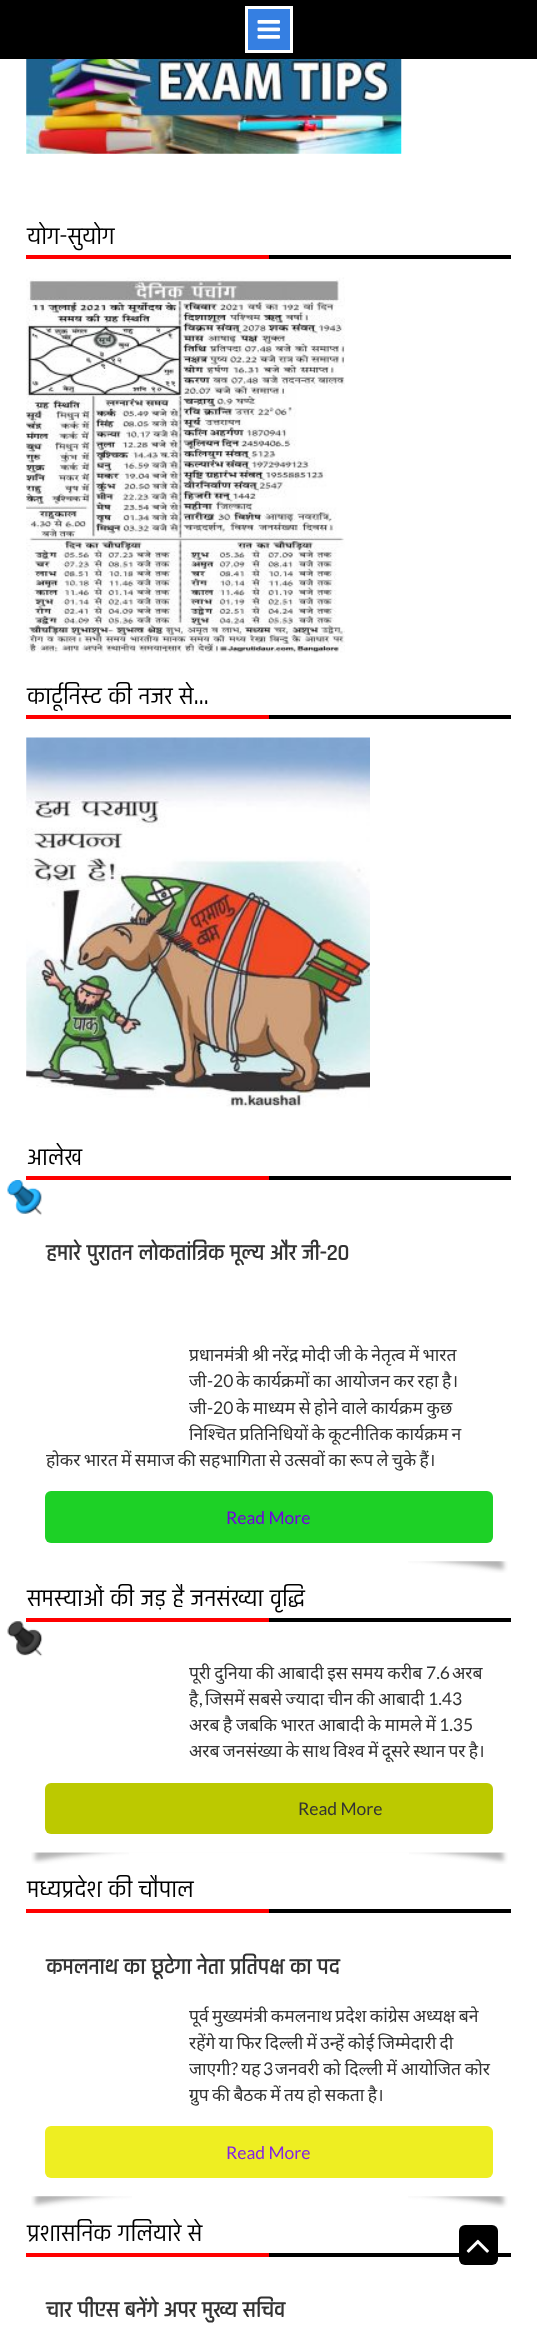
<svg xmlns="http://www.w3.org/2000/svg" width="537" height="2327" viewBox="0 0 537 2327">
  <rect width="100%" height="100%" fill="#ffffff"/>
  <rect x="0" y="0" width="537" height="59" fill="#000000"/>
  <rect x="246.5" y="7.5" width="45" height="44" fill="#357fe2" stroke="#fffffe" stroke-width="3"/>
  <image x="257" y="20" width="23" height="19" href="img1.png"/>
  <image x="26" y="59" width="376" height="95" href="img2.png"/>
  <rect x="269" y="255" width="242" height="4" fill="#000000"/>
  <text x="27" y="244" font-family="Rajdhani" font-size="25" font-weight="500" fill="#000000">योग-सुयोग</text>
  <rect x="26" y="255" width="243" height="4" fill="#ff0000"/>
  <image x="26" y="277" width="319" height="376" href="img3.png"/>
  <rect x="269" y="715" width="242" height="4" fill="#000000"/>
  <text x="27" y="704" font-family="Rajdhani" font-size="25" font-weight="500" fill="#000000">कार्टूनिस्ट की नजर से…</text>
  <rect x="26" y="715" width="243" height="4" fill="#ff0000"/>
  <image x="26" y="737" width="344" height="371" href="img4.png"/>
  <rect x="269" y="1176" width="242" height="4" fill="#000000"/>
  <text x="27" y="1165" font-family="Rajdhani" font-size="25" font-weight="500" fill="#000000">आलेख</text>
  <rect x="26" y="1176" width="243" height="4" fill="#ff0000"/>
  <image x="7" y="1180" width="35" height="36" href="img5.png"/>
  <text x="46" y="1260" font-family="Rajdhani" font-size="22.5" font-weight="bold" fill="#333333">हमारे पुरातन लोकतांत्रिक मूल्य और जी-20</text>
  <text x="189" y="1361" word-spacing="-1.25" font-family="Noto Sans" font-size="17.5" fill="#333333">प्रधानमंत्री श्री नरेंद्र मोदी जी के नेतृत्व में भारत</text>
  <text x="189" y="1387" font-family="Noto Sans" font-size="17.5" fill="#333333">जी</text>
  <text x="207" y="1387" font-family="Lato" font-size="17.5" fill="#333333">-20</text>
  <text x="236" y="1387" word-spacing="-1" font-family="Noto Sans" font-size="17.5" fill="#333333">के कार्यक्रमों का आयोजन कर रहा है।</text>
  <text x="189" y="1414" font-family="Noto Sans" font-size="17.5" fill="#333333">जी</text>
  <text x="207" y="1414" font-family="Lato" font-size="17.5" fill="#333333">-20</text>
  <text x="236" y="1414" word-spacing="-1" font-family="Noto Sans" font-size="17.5" fill="#333333">के माध्यम से होने वाले कार्यक्रम कुछ</text>
  <text x="189" y="1440" word-spacing="-1.25" font-family="Noto Sans" font-size="17.5" fill="#333333">निश्चित प्रतिनिधियों के कूटनीतिक कार्यक्रम न</text>
  <text x="46" y="1466" word-spacing="-1.25" font-family="Noto Sans" font-size="17.5" fill="#333333">होकर भारत में समाज की सहभागिता से उत्सवों का रूप ले चुके हैं।</text>
  <rect x="45" y="1491" width="448" height="52" rx="6" fill="#1dd126"/>
  <text x="226" y="1524" font-family="Lato" font-size="17.5" fill="#7202e2">Read More</text>
  <image x="408" y="1561" width="100" height="12" href="img6.png"/>
  <rect x="269" y="1618" width="242" height="4" fill="#000000"/>
  <text x="27" y="1606" font-family="Rajdhani" font-size="25" font-weight="500" fill="#000000">समस्याओं की जड़ है जनसंख्या वृद्धि</text>
  <rect x="26" y="1618" width="243" height="4" fill="#ff0000"/>
  <image x="7" y="1621" width="36" height="36" href="img7.png"/>
  <text x="189" y="1679" word-spacing="-1" font-family="Noto Sans" font-size="17.5" fill="#333333">पूरी दुनिया की आबादी इस समय करीब</text>
  <text x="426" y="1679" font-family="Lato" font-size="17.5" fill="#333333">7.6</text>
  <text x="452" y="1679" font-family="Noto Sans" font-size="17.5" fill="#333333">अरब</text>
  <text x="189" y="1705" font-family="Noto Sans" font-size="17.5" fill="#333333">है</text>
  <text x="199" y="1705" font-family="Lato" font-size="17.5" fill="#333333">,</text>
  <text x="205" y="1705" word-spacing="-1" font-family="Noto Sans" font-size="17.5" fill="#333333">जिसमें सबसे ज्यादा चीन की आबादी</text>
  <text x="428" y="1705" font-family="Lato" font-size="17.5" fill="#333333">1.43</text>
  <text x="189" y="1731" word-spacing="-1" font-family="Noto Sans" font-size="17.5" fill="#333333">अरब है जबकि भारत आबादी के मामले में</text>
  <text x="439" y="1731" font-family="Lato" font-size="17.5" fill="#333333">1.35</text>
  <text x="189" y="1757" word-spacing="-1.25" font-family="Noto Sans" font-size="17.5" fill="#333333">अरब जनसंख्या के साथ विश्व में दूसरे स्थान पर है।</text>
  <rect x="45" y="1783" width="448" height="51" rx="6" fill="#bcc900"/>
  <text x="298" y="1815" font-family="Lato" font-size="17.5" fill="#333333">Read More</text>
  <image x="31" y="1852" width="98" height="12" href="img8.png"/>
  <image x="409" y="1852" width="99" height="12" href="img9.png"/>
  <rect x="39" y="1852" width="460" height="1" fill="#f6f6f6" fill-opacity="0.1"/>
  <rect x="269" y="1909" width="242" height="4" fill="#000000"/>
  <text x="27" y="1897" font-family="Rajdhani" font-size="25" font-weight="500" fill="#000000">मध्यप्रदेश की चौपाल</text>
  <rect x="26" y="1909" width="243" height="4" fill="#ff0000"/>
  <text x="46" y="1974" font-family="Rajdhani" font-size="22.5" font-weight="bold" fill="#333333">कमलनाथ का छूटेगा नेता प्रतिपक्ष का पद</text>
  <text x="189" y="2022" word-spacing="-1.25" font-family="Noto Sans" font-size="17.5" fill="#333333">पूर्व मुख्यमंत्री कमलनाथ प्रदेश कांग्रेस अध्यक्ष बने</text>
  <text x="189" y="2049" word-spacing="-1.25" font-family="Noto Sans" font-size="17.5" fill="#333333">रहेंगे या फिर दिल्ली में उन्हें कोई जिम्मेदारी दी</text>
  <text x="189" y="2075" font-family="Noto Sans" font-size="17.5" fill="#333333">जाएगी</text>
  <text x="231" y="2075" font-family="Lato" font-size="17.5" fill="#333333">?</text>
  <text x="241" y="2075" font-family="Noto Sans" font-size="17.5" fill="#333333">यह</text>
  <text x="263" y="2075" font-family="Lato" font-size="17.5" fill="#333333">3</text>
  <text x="275" y="2075" word-spacing="-0.75" font-family="Noto Sans" font-size="17.5" fill="#333333">जनवरी को दिल्ली में आयोजित कोर</text>
  <text x="189" y="2101" word-spacing="-1.25" font-family="Noto Sans" font-size="17.5" fill="#333333">ग्रुप की बैठक में तय हो सकता है।</text>
  <rect x="45" y="2126" width="448" height="52" rx="6" fill="#eeee22"/>
  <text x="226" y="2159" font-family="Lato" font-size="17.5" fill="#8224e3">Read More</text>
  <image x="31" y="2196" width="101" height="12" href="img10.png"/>
  <image x="408" y="2196" width="100" height="12" href="img6.png"/>
  <rect x="269" y="2253" width="242" height="4" fill="#000000"/>
  <text x="27" y="2241" font-family="Rajdhani" font-size="25" font-weight="500" fill="#000000">प्रशासनिक गलियारे से</text>
  <rect x="26" y="2253" width="243" height="4" fill="#ff0000"/>
  <text x="46" y="2317" font-family="Rajdhani" font-size="22.5" font-weight="bold" fill="#333333">चार पीएस बनेंगे अपर मुख्य सचिव</text>
  <rect x="459" y="2225" width="39" height="40" rx="6" fill="#000000"/>
  <image x="466" y="2239" width="23" height="14" href="img11.png"/>
</svg>
